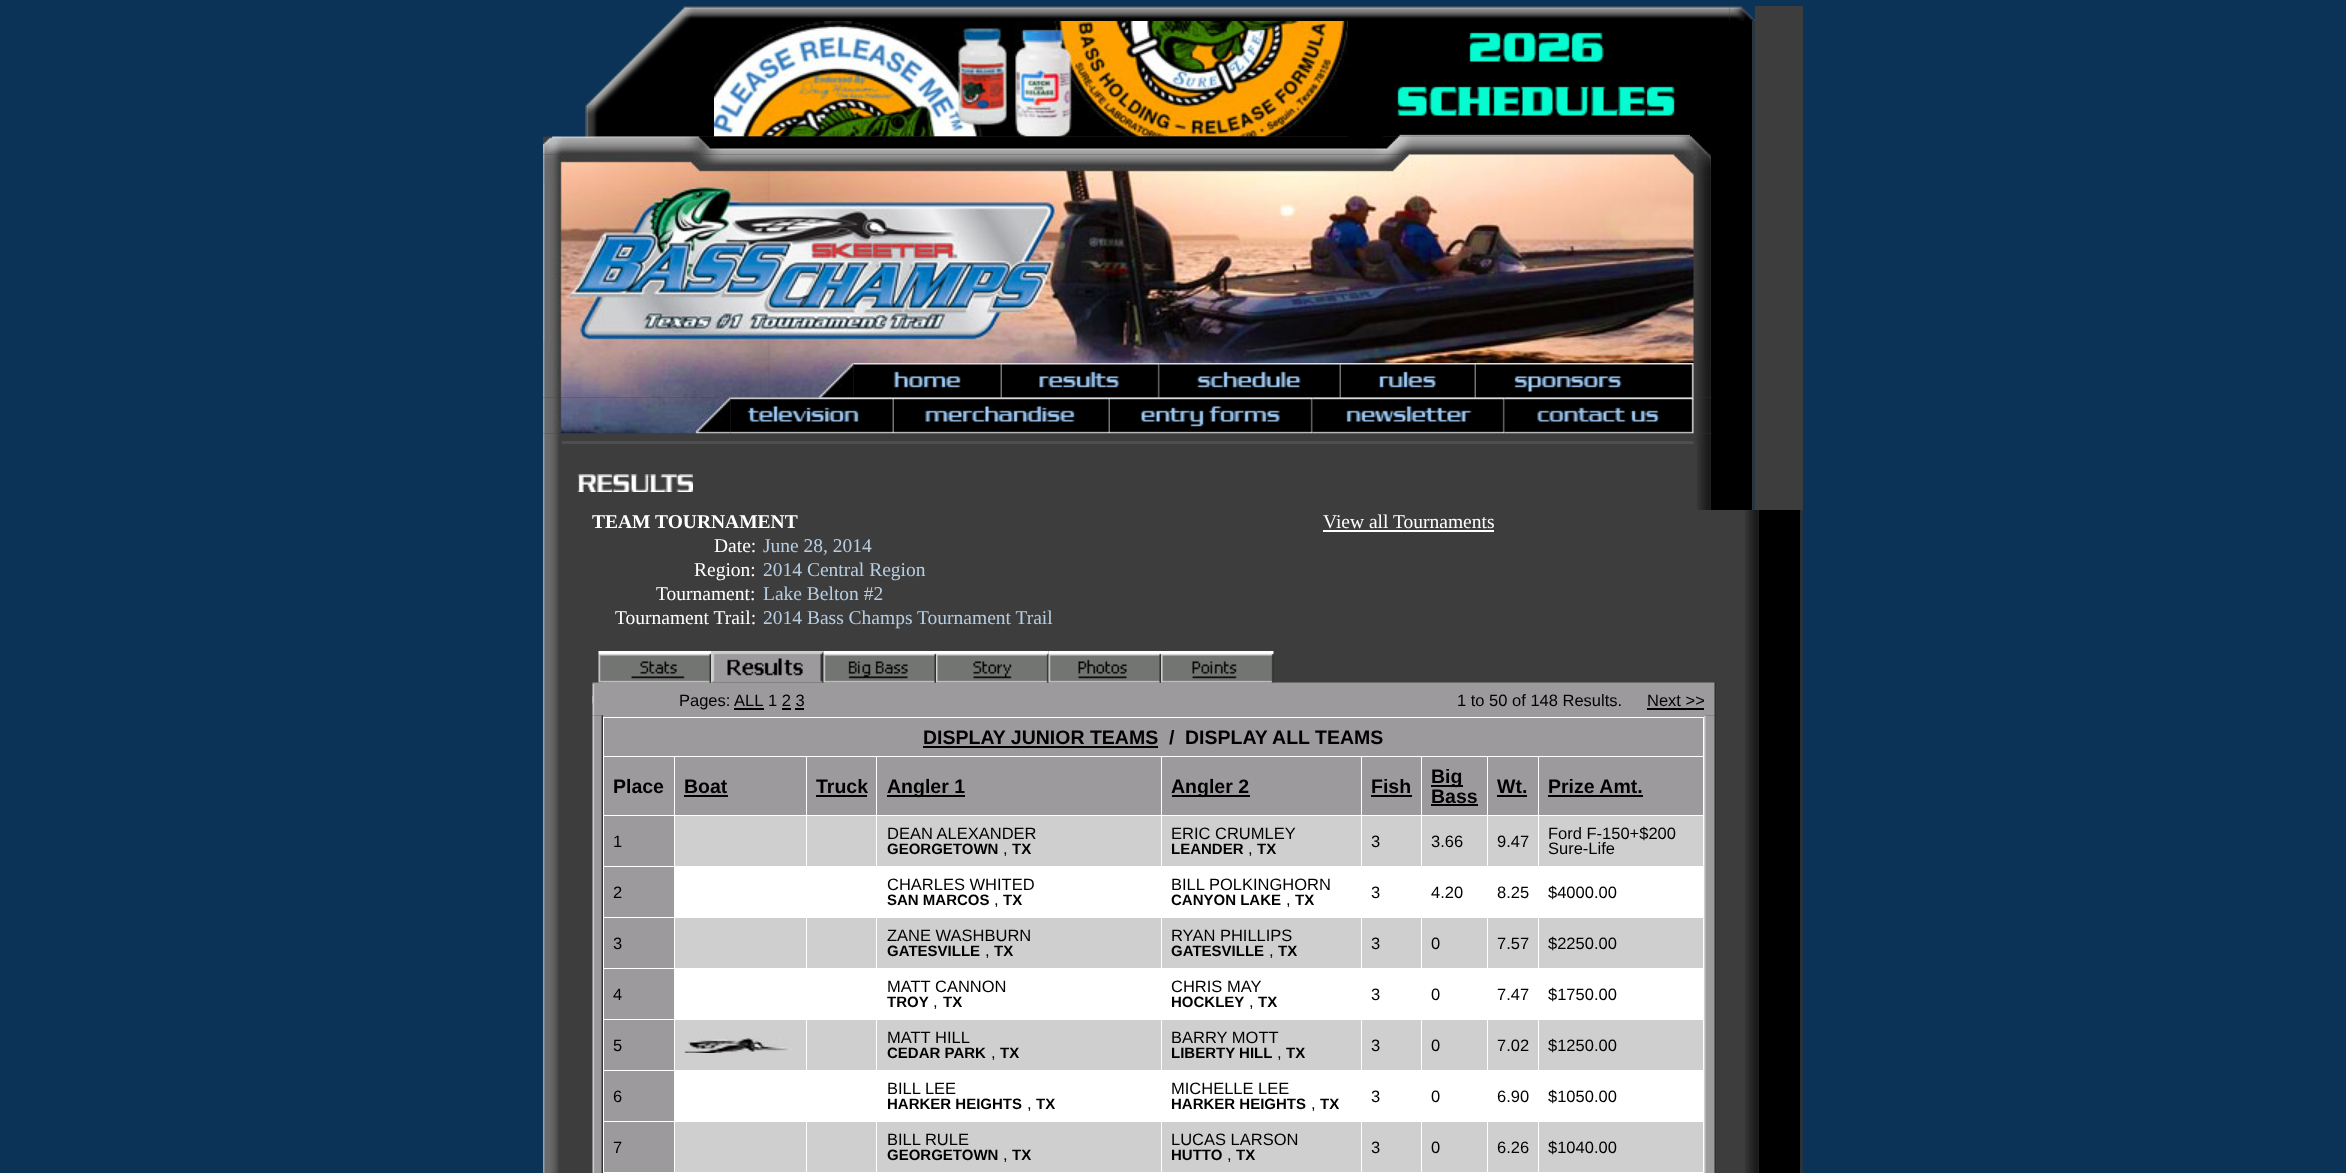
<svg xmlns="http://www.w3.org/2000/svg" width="2346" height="1173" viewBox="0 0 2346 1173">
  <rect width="100%" height="100%" fill="#0b3257"/>
  <rect x="543" y="6" width="1260" height="1167" fill="#3d3d3d"/>
  <rect x="543" y="6" width="42" height="131" fill="#0b3257"/>
  <image x="585" y="6" width="129" height="131" href="img1.png"/>
  <image x="714" y="6" width="1016" height="15" href="img2.png"/>
  <image x="1729" y="6" width="26" height="15" href="img3.png"/>
  <image x="714" y="21" width="634" height="116" href="img4.png"/>
  <rect x="1348" y="21" width="35" height="116" fill="#000000"/>
  <image x="1383" y="21" width="307" height="102" href="img5.png"/>
  <image x="1383" y="123" width="307" height="14" href="img6.png"/>
  <rect x="1690" y="21" width="62" height="116" fill="#000000"/>
  <rect x="1752" y="21" width="3" height="489" fill="#2c363f"/>
  <image x="543" y="136" width="1169" height="19" href="img7.png"/>
  <rect x="1711" y="137" width="41" height="18" fill="#000000"/>
  <image x="543" y="154" width="1169" height="209" href="img8.png"/>
  <rect x="1711" y="155" width="41" height="243" fill="#000000"/>
  <image x="543" y="363" width="311" height="35" href="img9.png"/>
  <image x="853" y="363" width="149" height="35" href="img10.png"/>
  <image x="1002" y="363" width="158" height="35" href="img11.png"/>
  <image x="1159" y="363" width="182" height="35" href="img12.png"/>
  <image x="1341" y="363" width="135" height="35" href="img13.png"/>
  <image x="1476" y="363" width="235" height="35" href="img14.png"/>
  <image x="543" y="397" width="188" height="37" href="img15.png"/>
  <image x="730" y="397" width="164" height="37" href="img16.png"/>
  <image x="894" y="397" width="216" height="37" href="img17.png"/>
  <image x="1110" y="397" width="203" height="37" href="img18.png"/>
  <image x="1312" y="397" width="193" height="37" href="img19.png"/>
  <image x="1504" y="397" width="208" height="37" href="img20.png"/>
  <rect x="1711" y="398" width="41" height="36" fill="#000000"/>
  <image x="543" y="433" width="20" height="8" href="img21.png"/>
  <image x="563" y="433" width="1131" height="1" href="img22.png"/>
  <image x="1693" y="433" width="19" height="8" href="img23.png"/>
  <rect x="1711" y="434" width="41" height="76" fill="#000000"/>
  <image x="543" y="441" width="16" height="3" href="img24.png"/>
  <rect x="562" y="441" width="1132" height="3" fill="#4e4e4e"/>
  <image x="1693" y="441" width="18" height="3" href="img25.png"/>
  <image x="543" y="444" width="16" height="30" href="img26.png"/>
  <image x="1697" y="444" width="14" height="30" href="img27.png"/>
  <image x="543" y="474" width="16" height="18" href="img28.png"/>
  <image x="577" y="474" width="116" height="18" href="img29.png"/>
  <image x="1697" y="474" width="14" height="18" href="img30.png"/>
  <image x="543" y="492" width="16" height="18" href="img28.png"/>
  <image x="1697" y="492" width="14" height="18" href="img30.png"/>
  <image x="543" y="510" width="16" height="663" href="img31.png"/>
  <text x="592" y="528" font-family="Liberation Serif" font-size="19.5" font-weight="bold" fill="#ffffff">TEAM TOURNAMENT</text>
  <text x="1323" y="528" font-family="Liberation Serif" font-size="19.5" fill="#ffffff">View all Tournaments</text>
  <rect x="1323" y="530" width="171" height="2" fill="#ffffff"/>
  <text x="714" y="552" font-family="Liberation Serif" font-size="19.5" fill="#ffffff">Date:</text>
  <text x="763" y="552" font-family="Liberation Serif" font-size="19.5" fill="#b7cee2">June 28, 2014</text>
  <text x="694" y="576" font-family="Liberation Serif" font-size="19.5" fill="#ffffff">Region:</text>
  <text x="763" y="576" font-family="Liberation Serif" font-size="19.5" fill="#b7cee2">2014 Central Region</text>
  <text x="656" y="600" font-family="Liberation Serif" font-size="19.5" fill="#ffffff">Tournament:</text>
  <text x="763" y="600" font-family="Liberation Serif" font-size="19.5" fill="#b7cee2">Lake Belton #2</text>
  <text x="615" y="624" font-family="Liberation Serif" font-size="19.5" fill="#ffffff">Tournament Trail:</text>
  <text x="763" y="624" font-family="Liberation Serif" font-size="19.5" fill="#b7cee2">2014 Bass Champs Tournament Trail</text>
  <image x="603" y="682" width="1101" height="2" href="img39.png"/>
  <image x="598" y="651" width="113" height="32" href="img32.png"/>
  <image x="711" y="651" width="113" height="32" href="img33.png"/>
  <image x="823" y="651" width="113" height="32" href="img34.png"/>
  <image x="936" y="651" width="113" height="32" href="img35.png"/>
  <image x="1048" y="651" width="113" height="32" href="img36.png"/>
  <image x="1161" y="651" width="113" height="32" href="img37.png"/>
  <image x="592" y="682" width="11" height="2" href="img38.png"/>
  <image x="1704" y="682" width="12" height="2" href="img40.png"/>
  <image x="592" y="684" width="11" height="32" href="img41.png"/>
  <image x="592" y="696" width="1" height="8" href="img42.png"/>
  <rect x="603" y="684" width="1101" height="33" fill="#9c9a9c"/>
  <text x="679" y="706" font-family="Liberation Sans" font-size="16.5" fill="#000000">Pages:</text>
  <text x="734" y="706" font-family="Liberation Sans" font-size="16.5" fill="#000000">ALL</text>
  <rect x="734" y="708" width="30" height="2" fill="#000000"/>
  <text x="768" y="706" font-family="Liberation Sans" font-size="16.5" fill="#000000">1 2 3</text>
  <rect x="782" y="708" width="9" height="2" fill="#000000"/>
  <rect x="795" y="708" width="9" height="2" fill="#000000"/>
  <text x="1457" y="706" font-family="Liberation Sans" font-size="16.5" fill="#000000">1 to 50 of 148 Results.</text>
  <text x="1647" y="706" font-family="Liberation Sans" font-size="16.5" fill="#000000">Next &gt;&gt;</text>
  <rect x="1647" y="708" width="57" height="2" fill="#000000"/>
  <image x="1704" y="684" width="12" height="32" href="img43.png"/>
  <image x="592" y="715" width="11" height="2" href="img44.png"/>
  <image x="1704" y="715" width="12" height="2" href="img45.png"/>
  <image x="592" y="717" width="11" height="456" href="img46.png"/>
  <rect x="603" y="717" width="1101" height="456" fill="#ffffff"/>
  <rect x="604" y="718" width="1099" height="38" fill="#9c9a9c"/>
  <text x="923" y="744" font-family="Liberation Sans" font-size="19.5" font-weight="bold" fill="#000000">DISPLAY JUNIOR TEAMS</text>
  <rect x="923" y="746" width="235" height="2" fill="#000000"/>
  <text x="1169" y="744" font-family="Liberation Sans" font-size="19.5" font-weight="bold" fill="#000000">/</text>
  <text x="1185" y="744" font-family="Liberation Sans" font-size="19.5" font-weight="bold" fill="#000000">DISPLAY ALL TEAMS</text>
  <rect x="604" y="757" width="70" height="58" fill="#9c9a9c"/>
  <text x="613" y="793" font-family="Liberation Sans" font-size="19.5" font-weight="bold" fill="#000000">Place</text>
  <rect x="675" y="757" width="131" height="58" fill="#9c9a9c"/>
  <text x="684" y="793" font-family="Liberation Sans" font-size="19.5" font-weight="bold" fill="#000000">Boat</text>
  <rect x="684" y="795" width="44" height="2" fill="#000000"/>
  <rect x="807" y="757" width="69" height="58" fill="#9c9a9c"/>
  <text x="816" y="793" font-family="Liberation Sans" font-size="19.5" font-weight="bold" fill="#000000">Truck</text>
  <rect x="816" y="795" width="51" height="2" fill="#000000"/>
  <rect x="877" y="757" width="284" height="58" fill="#9c9a9c"/>
  <rect x="887" y="795" width="78" height="2" fill="#000000"/>
  <text x="887" y="793" font-family="Liberation Sans" font-size="19.5" font-weight="bold" fill="#000000">Angler 1</text>
  <rect x="1162" y="757" width="199" height="58" fill="#9c9a9c"/>
  <rect x="1172" y="795" width="78" height="2" fill="#000000"/>
  <text x="1171" y="793" font-family="Liberation Sans" font-size="19.5" font-weight="bold" fill="#000000">Angler 2</text>
  <rect x="1362" y="757" width="59" height="58" fill="#9c9a9c"/>
  <text x="1371" y="793" font-family="Liberation Sans" font-size="19.5" font-weight="bold" fill="#000000">Fish</text>
  <rect x="1371" y="795" width="41" height="2" fill="#000000"/>
  <rect x="1422" y="757" width="65" height="58" fill="#9c9a9c"/>
  <rect x="1431" y="785" width="32" height="2" fill="#000000"/>
  <text x="1431" y="783" font-family="Liberation Sans" font-size="19.5" font-weight="bold" fill="#000000">Big</text>
  <text x="1431" y="803" font-family="Liberation Sans" font-size="19.5" font-weight="bold" fill="#000000">Bass</text>
  <rect x="1431" y="804" width="47" height="2" fill="#000000"/>
  <rect x="1488" y="757" width="50" height="58" fill="#9c9a9c"/>
  <text x="1497" y="793" font-family="Liberation Sans" font-size="19.5" font-weight="bold" fill="#000000">Wt.</text>
  <rect x="1497" y="795" width="30" height="2" fill="#000000"/>
  <rect x="1539" y="757" width="164" height="58" fill="#9c9a9c"/>
  <text x="1548" y="793" font-family="Liberation Sans" font-size="19.5" font-weight="bold" fill="#000000">Prize Amt.</text>
  <rect x="1548" y="795" width="95" height="2" fill="#000000"/>
  <rect x="604" y="816" width="70" height="50" fill="#9c9a9c"/>
  <text x="613" y="847" font-family="Liberation Sans" font-size="16.5" fill="#000000">1</text>
  <rect x="675" y="816" width="131" height="50" fill="#cecfce"/>
  <rect x="807" y="816" width="69" height="50" fill="#cecfce"/>
  <rect x="877" y="816" width="284" height="50" fill="#cecfce"/>
  <text x="887" y="839" font-family="Liberation Sans" font-size="16.5" fill="#000000">DEAN ALEXANDER</text>
  <text x="887" y="854" font-family="Liberation Sans" font-size="15" font-weight="bold" fill="#000000">GEORGETOWN</text>
  <text x="1012" y="854" font-family="Liberation Sans" font-size="15" font-weight="bold" fill="#000000">TX</text>
  <text x="1003" y="854" font-family="Liberation Sans" font-size="16.5" fill="#000000">,</text>
  <rect x="1162" y="816" width="199" height="50" fill="#cecfce"/>
  <text x="1171" y="839" font-family="Liberation Sans" font-size="16.5" fill="#000000">ERIC CRUMLEY</text>
  <text x="1171" y="854" font-family="Liberation Sans" font-size="15" font-weight="bold" fill="#000000">LEANDER</text>
  <text x="1257" y="854" font-family="Liberation Sans" font-size="15" font-weight="bold" fill="#000000">TX</text>
  <text x="1248" y="854" font-family="Liberation Sans" font-size="16.5" fill="#000000">,</text>
  <rect x="1362" y="816" width="59" height="50" fill="#cecfce"/>
  <text x="1371" y="847" font-family="Liberation Sans" font-size="16.5" fill="#000000">3</text>
  <rect x="1422" y="816" width="65" height="50" fill="#cecfce"/>
  <text x="1431" y="847" font-family="Liberation Sans" font-size="16.5" fill="#000000">3.66</text>
  <rect x="1488" y="816" width="50" height="50" fill="#cecfce"/>
  <text x="1497" y="847" font-family="Liberation Sans" font-size="16.5" fill="#000000">9.47</text>
  <rect x="1539" y="816" width="164" height="50" fill="#cecfce"/>
  <text x="1548" y="839" font-family="Liberation Sans" font-size="16.5" fill="#000000">Ford F-150+$200</text>
  <text x="1548" y="854" font-family="Liberation Sans" font-size="16.5" fill="#000000">Sure-Life</text>
  <rect x="604" y="867" width="70" height="50" fill="#9c9a9c"/>
  <text x="613" y="898" font-family="Liberation Sans" font-size="16.5" fill="#000000">2</text>
  <text x="887" y="890" font-family="Liberation Sans" font-size="16.5" fill="#000000">CHARLES WHITED</text>
  <text x="887" y="905" font-family="Liberation Sans" font-size="15" font-weight="bold" fill="#000000">SAN MARCOS</text>
  <text x="1003" y="905" font-family="Liberation Sans" font-size="15" font-weight="bold" fill="#000000">TX</text>
  <text x="994" y="905" font-family="Liberation Sans" font-size="16.5" fill="#000000">,</text>
  <text x="1171" y="890" font-family="Liberation Sans" font-size="16.5" fill="#000000">BILL POLKINGHORN</text>
  <text x="1171" y="905" font-family="Liberation Sans" font-size="15" font-weight="bold" fill="#000000">CANYON LAKE</text>
  <text x="1295" y="905" font-family="Liberation Sans" font-size="15" font-weight="bold" fill="#000000">TX</text>
  <text x="1286" y="905" font-family="Liberation Sans" font-size="16.5" fill="#000000">,</text>
  <text x="1371" y="898" font-family="Liberation Sans" font-size="16.5" fill="#000000">3</text>
  <text x="1431" y="898" font-family="Liberation Sans" font-size="16.5" fill="#000000">4.20</text>
  <text x="1497" y="898" font-family="Liberation Sans" font-size="16.5" fill="#000000">8.25</text>
  <text x="1548" y="898" font-family="Liberation Sans" font-size="16.5" fill="#000000">$4000.00</text>
  <rect x="604" y="918" width="70" height="50" fill="#9c9a9c"/>
  <text x="613" y="949" font-family="Liberation Sans" font-size="16.5" fill="#000000">3</text>
  <rect x="675" y="918" width="131" height="50" fill="#cecfce"/>
  <rect x="807" y="918" width="69" height="50" fill="#cecfce"/>
  <rect x="877" y="918" width="284" height="50" fill="#cecfce"/>
  <text x="887" y="941" font-family="Liberation Sans" font-size="16.5" fill="#000000">ZANE WASHBURN</text>
  <text x="887" y="956" font-family="Liberation Sans" font-size="15" font-weight="bold" fill="#000000">GATESVILLE</text>
  <text x="994" y="956" font-family="Liberation Sans" font-size="15" font-weight="bold" fill="#000000">TX</text>
  <text x="985" y="956" font-family="Liberation Sans" font-size="16.5" fill="#000000">,</text>
  <rect x="1162" y="918" width="199" height="50" fill="#cecfce"/>
  <text x="1171" y="941" font-family="Liberation Sans" font-size="16.5" fill="#000000">RYAN PHILLIPS</text>
  <text x="1171" y="956" font-family="Liberation Sans" font-size="15" font-weight="bold" fill="#000000">GATESVILLE</text>
  <text x="1278" y="956" font-family="Liberation Sans" font-size="15" font-weight="bold" fill="#000000">TX</text>
  <text x="1269" y="956" font-family="Liberation Sans" font-size="16.5" fill="#000000">,</text>
  <rect x="1362" y="918" width="59" height="50" fill="#cecfce"/>
  <text x="1371" y="949" font-family="Liberation Sans" font-size="16.5" fill="#000000">3</text>
  <rect x="1422" y="918" width="65" height="50" fill="#cecfce"/>
  <text x="1431" y="949" font-family="Liberation Sans" font-size="16.5" fill="#000000">0</text>
  <rect x="1488" y="918" width="50" height="50" fill="#cecfce"/>
  <text x="1497" y="949" font-family="Liberation Sans" font-size="16.5" fill="#000000">7.57</text>
  <rect x="1539" y="918" width="164" height="50" fill="#cecfce"/>
  <text x="1548" y="949" font-family="Liberation Sans" font-size="16.5" fill="#000000">$2250.00</text>
  <rect x="604" y="969" width="70" height="50" fill="#9c9a9c"/>
  <text x="613" y="1000" font-family="Liberation Sans" font-size="16.5" fill="#000000">4</text>
  <text x="887" y="992" font-family="Liberation Sans" font-size="16.5" fill="#000000">MATT CANNON</text>
  <text x="887" y="1007" font-family="Liberation Sans" font-size="15" font-weight="bold" fill="#000000">TROY</text>
  <text x="943" y="1007" font-family="Liberation Sans" font-size="15" font-weight="bold" fill="#000000">TX</text>
  <text x="933" y="1007" font-family="Liberation Sans" font-size="16.5" fill="#000000">,</text>
  <text x="1171" y="992" font-family="Liberation Sans" font-size="16.5" fill="#000000">CHRIS MAY</text>
  <text x="1171" y="1007" font-family="Liberation Sans" font-size="15" font-weight="bold" fill="#000000">HOCKLEY</text>
  <text x="1258" y="1007" font-family="Liberation Sans" font-size="15" font-weight="bold" fill="#000000">TX</text>
  <text x="1249" y="1007" font-family="Liberation Sans" font-size="16.5" fill="#000000">,</text>
  <text x="1371" y="1000" font-family="Liberation Sans" font-size="16.5" fill="#000000">3</text>
  <text x="1431" y="1000" font-family="Liberation Sans" font-size="16.5" fill="#000000">0</text>
  <text x="1497" y="1000" font-family="Liberation Sans" font-size="16.5" fill="#000000">7.47</text>
  <text x="1548" y="1000" font-family="Liberation Sans" font-size="16.5" fill="#000000">$1750.00</text>
  <rect x="604" y="1020" width="70" height="50" fill="#9c9a9c"/>
  <text x="613" y="1051" font-family="Liberation Sans" font-size="16.5" fill="#000000">5</text>
  <rect x="675" y="1020" width="131" height="50" fill="#cecfce"/>
  <image x="684" y="1038" width="108" height="15" href="img47.png"/>
  <rect x="807" y="1020" width="69" height="50" fill="#cecfce"/>
  <rect x="877" y="1020" width="284" height="50" fill="#cecfce"/>
  <text x="887" y="1043" font-family="Liberation Sans" font-size="16.5" fill="#000000">MATT HILL</text>
  <text x="887" y="1058" font-family="Liberation Sans" font-size="15" font-weight="bold" fill="#000000">CEDAR PARK</text>
  <text x="1000" y="1058" font-family="Liberation Sans" font-size="15" font-weight="bold" fill="#000000">TX</text>
  <text x="991" y="1058" font-family="Liberation Sans" font-size="16.5" fill="#000000">,</text>
  <rect x="1162" y="1020" width="199" height="50" fill="#cecfce"/>
  <text x="1171" y="1043" font-family="Liberation Sans" font-size="16.5" fill="#000000">BARRY MOTT</text>
  <text x="1171" y="1058" font-family="Liberation Sans" font-size="15" font-weight="bold" fill="#000000">LIBERTY HILL</text>
  <text x="1286" y="1058" font-family="Liberation Sans" font-size="15" font-weight="bold" fill="#000000">TX</text>
  <text x="1277" y="1058" font-family="Liberation Sans" font-size="16.5" fill="#000000">,</text>
  <rect x="1362" y="1020" width="59" height="50" fill="#cecfce"/>
  <text x="1371" y="1051" font-family="Liberation Sans" font-size="16.5" fill="#000000">3</text>
  <rect x="1422" y="1020" width="65" height="50" fill="#cecfce"/>
  <text x="1431" y="1051" font-family="Liberation Sans" font-size="16.5" fill="#000000">0</text>
  <rect x="1488" y="1020" width="50" height="50" fill="#cecfce"/>
  <text x="1497" y="1051" font-family="Liberation Sans" font-size="16.5" fill="#000000">7.02</text>
  <rect x="1539" y="1020" width="164" height="50" fill="#cecfce"/>
  <text x="1548" y="1051" font-family="Liberation Sans" font-size="16.5" fill="#000000">$1250.00</text>
  <rect x="604" y="1071" width="70" height="50" fill="#9c9a9c"/>
  <text x="613" y="1102" font-family="Liberation Sans" font-size="16.5" fill="#000000">6</text>
  <text x="887" y="1094" font-family="Liberation Sans" font-size="16.5" fill="#000000">BILL LEE</text>
  <text x="887" y="1109" font-family="Liberation Sans" font-size="15" font-weight="bold" fill="#000000">HARKER HEIGHTS</text>
  <text x="1036" y="1109" font-family="Liberation Sans" font-size="15" font-weight="bold" fill="#000000">TX</text>
  <text x="1027" y="1109" font-family="Liberation Sans" font-size="16.5" fill="#000000">,</text>
  <text x="1171" y="1094" font-family="Liberation Sans" font-size="16.5" fill="#000000">MICHELLE LEE</text>
  <text x="1171" y="1109" font-family="Liberation Sans" font-size="15" font-weight="bold" fill="#000000">HARKER HEIGHTS</text>
  <text x="1320" y="1109" font-family="Liberation Sans" font-size="15" font-weight="bold" fill="#000000">TX</text>
  <text x="1311" y="1109" font-family="Liberation Sans" font-size="16.5" fill="#000000">,</text>
  <text x="1371" y="1102" font-family="Liberation Sans" font-size="16.5" fill="#000000">3</text>
  <text x="1431" y="1102" font-family="Liberation Sans" font-size="16.5" fill="#000000">0</text>
  <text x="1497" y="1102" font-family="Liberation Sans" font-size="16.5" fill="#000000">6.90</text>
  <text x="1548" y="1102" font-family="Liberation Sans" font-size="16.5" fill="#000000">$1050.00</text>
  <rect x="604" y="1122" width="70" height="50" fill="#9c9a9c"/>
  <text x="613" y="1153" font-family="Liberation Sans" font-size="16.5" fill="#000000">7</text>
  <rect x="675" y="1122" width="131" height="50" fill="#cecfce"/>
  <rect x="807" y="1122" width="69" height="50" fill="#cecfce"/>
  <rect x="877" y="1122" width="284" height="50" fill="#cecfce"/>
  <text x="887" y="1145" font-family="Liberation Sans" font-size="16.5" fill="#000000">BILL RULE</text>
  <text x="887" y="1160" font-family="Liberation Sans" font-size="15" font-weight="bold" fill="#000000">GEORGETOWN</text>
  <text x="1012" y="1160" font-family="Liberation Sans" font-size="15" font-weight="bold" fill="#000000">TX</text>
  <text x="1003" y="1160" font-family="Liberation Sans" font-size="16.5" fill="#000000">,</text>
  <rect x="1162" y="1122" width="199" height="50" fill="#cecfce"/>
  <text x="1171" y="1145" font-family="Liberation Sans" font-size="16.5" fill="#000000">LUCAS LARSON</text>
  <text x="1171" y="1160" font-family="Liberation Sans" font-size="15" font-weight="bold" fill="#000000">HUTTO</text>
  <text x="1236" y="1160" font-family="Liberation Sans" font-size="15" font-weight="bold" fill="#000000">TX</text>
  <text x="1227" y="1160" font-family="Liberation Sans" font-size="16.5" fill="#000000">,</text>
  <rect x="1362" y="1122" width="59" height="50" fill="#cecfce"/>
  <text x="1371" y="1153" font-family="Liberation Sans" font-size="16.5" fill="#000000">3</text>
  <rect x="1422" y="1122" width="65" height="50" fill="#cecfce"/>
  <text x="1431" y="1153" font-family="Liberation Sans" font-size="16.5" fill="#000000">0</text>
  <rect x="1488" y="1122" width="50" height="50" fill="#cecfce"/>
  <text x="1497" y="1153" font-family="Liberation Sans" font-size="16.5" fill="#000000">6.26</text>
  <rect x="1539" y="1122" width="164" height="50" fill="#cecfce"/>
  <text x="1548" y="1153" font-family="Liberation Sans" font-size="16.5" fill="#000000">$1040.00</text>
  <image x="1704" y="717" width="12" height="456" href="img48.png"/>
  <image x="1745" y="510" width="14" height="663" href="img49.png"/>
  <rect x="1759" y="510" width="41" height="663" fill="#000000"/>
  <rect x="1800" y="510" width="3" height="663" fill="#2a333b"/>
</svg>
